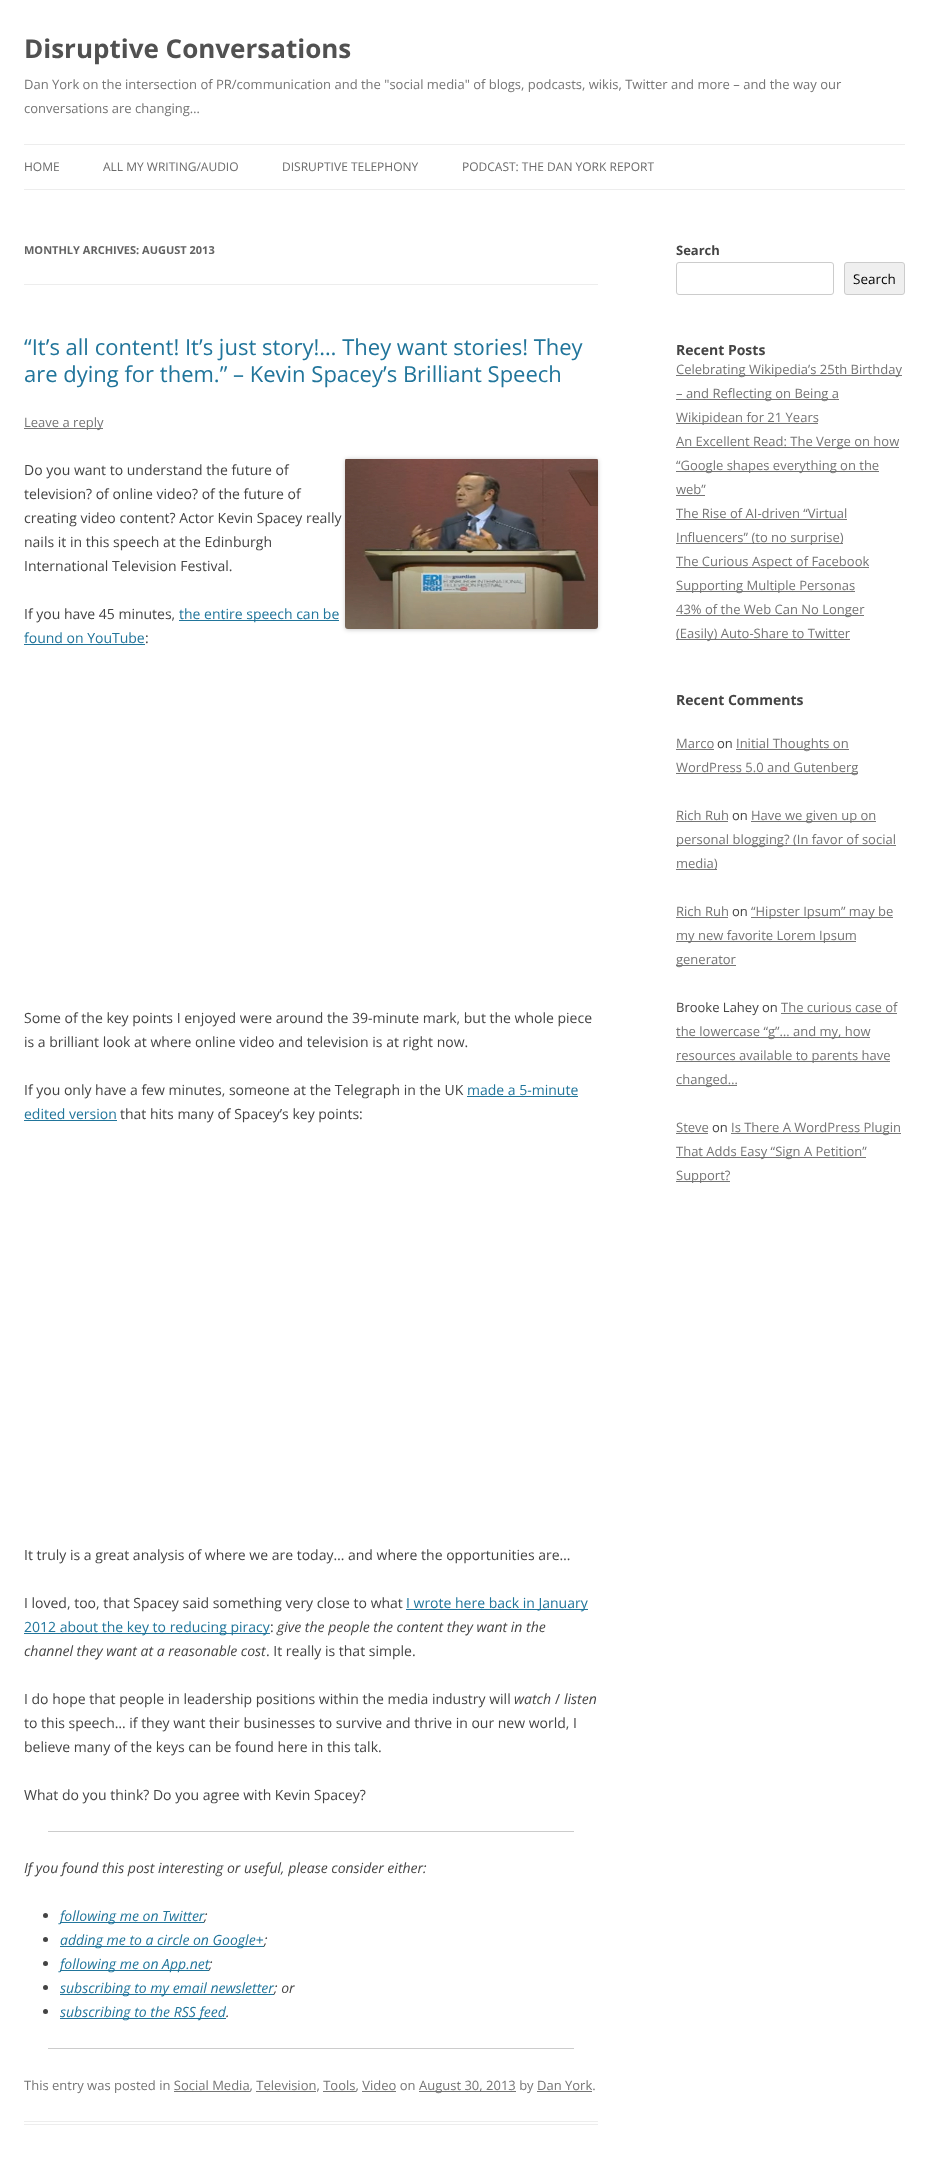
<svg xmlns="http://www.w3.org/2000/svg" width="929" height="2161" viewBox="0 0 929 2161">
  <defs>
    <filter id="blur1" x="-50%" y="-200%" width="200%" height="500%"><feGaussianBlur stdDeviation="2"/></filter>
  </defs>
  <rect width="100%" height="100%" fill="#ffffff"/>
  <text x="24" y="58" font-family="Open Sans" font-size="26" font-weight="bold" fill="#515151">Disruptive Conversations</text>
  <text x="24" y="89" font-family="Open Sans" font-size="13" fill="#757575">Dan York on the intersection of PR/communication and the "social media" of blogs, podcasts, wikis, Twitter and more – and the way our</text>
  <text x="24" y="113" font-family="Open Sans" font-size="13" fill="#757575">conversations are changing…</text>
  <rect x="24" y="144" width="881" height="1" fill="#ededed"/>
  <rect x="24" y="189" width="881" height="1" fill="#ededed"/>
  <text x="24" y="171" font-family="Open Sans" font-size="12" fill="#6a6a6a">HOME</text>
  <text x="103" y="171" font-family="Open Sans" font-size="12" fill="#6a6a6a">ALL MY WRITING/AUDIO</text>
  <text x="282" y="171" font-family="Open Sans" font-size="12" fill="#6a6a6a">DISRUPTIVE TELEPHONY</text>
  <text x="462" y="171" font-family="Open Sans" font-size="12" fill="#6a6a6a">PODCAST: THE DAN YORK REPORT</text>
  <rect x="24" y="284" width="574" height="1" fill="#ededed"/>
  <text x="24" y="254" font-family="Open Sans" font-size="11" font-weight="bold" fill="#636363">MONTHLY ARCHIVES: AUGUST 2013</text>
  <rect x="24" y="2121" width="574" height="1" fill="#ededed"/>
  <rect x="24" y="2124" width="574" height="1" fill="#ededed"/>
  <text x="24" y="355" font-family="Open Sans" font-size="22" fill="#21759b">“It’s all content! It’s just story!… They want stories! They</text>
  <text x="24" y="382" font-family="Open Sans" font-size="22" fill="#21759b">are dying for them.” – Kevin Spacey’s Brilliant Speech</text>
  <rect x="24" y="428" width="79" height="1" fill="#757575"/>
  <text x="24" y="427" font-family="Open Sans" font-size="13" fill="#757575">Leave a reply</text>
  <text x="24" y="475" font-family="Open Sans" font-size="14" fill="#444444">Do you want to understand the future of</text>
  <rect x="345" y="459" width="253" height="171" rx="3" fill="#000000" fill-opacity="0.2" filter="url(#blur1)"/>
  <image x="345" y="459" width="253" height="170" href="img1.png"/>
  <text x="24" y="499" font-family="Open Sans" font-size="14" fill="#444444">television? of online video? of the future of</text>
  <text x="24" y="523" font-family="Open Sans" font-size="14" fill="#444444">creating video content? Actor Kevin Spacey really</text>
  <text x="24" y="547" font-family="Open Sans" font-size="14" fill="#444444">nails it in this speech at the Edinburgh</text>
  <text x="24" y="571" font-family="Open Sans" font-size="14" fill="#444444">International Television Festival.</text>
  <text x="24" y="619" font-family="Open Sans" font-size="14" fill="#444444">If you have 45 minutes,</text>
  <rect x="179" y="620" width="160" height="1" fill="#21759b"/>
  <text x="179" y="619" font-family="Open Sans" font-size="14" fill="#21759b">the entire speech can be</text>
  <text x="24" y="643" font-family="Open Sans" font-size="14" fill="#21759b">found on YouTube</text>
  <rect x="24" y="644" width="121" height="1" fill="#21759b"/>
  <text x="145" y="643" font-family="Open Sans" font-size="14" fill="#444444">:</text>
  <text x="24" y="1023" font-family="Open Sans" font-size="14" fill="#444444">Some of the key points I enjoyed were around the 39-minute mark, but the whole piece</text>
  <text x="24" y="1047" font-family="Open Sans" font-size="14" fill="#444444">is a brilliant look at where online video and television is at right now.</text>
  <text x="24" y="1095" font-family="Open Sans" font-size="14" fill="#444444">If you only have a few minutes, someone at the Telegraph in the UK</text>
  <text x="467" y="1095" font-family="Open Sans" font-size="14" fill="#21759b">made a 5-minute</text>
  <rect x="467" y="1096" width="111" height="1" fill="#21759b"/>
  <text x="24" y="1119" font-family="Open Sans" font-size="14" fill="#21759b">edited version</text>
  <rect x="24" y="1120" width="93" height="1" fill="#21759b"/>
  <text x="120" y="1119" font-family="Open Sans" font-size="14" fill="#444444">that hits many of Spacey’s key points:</text>
  <text x="24" y="1560" font-family="Open Sans" font-size="14" fill="#444444">It truly is a great analysis of where we are today… and where the opportunities are…</text>
  <text x="24" y="1608" font-family="Open Sans" font-size="14" fill="#444444">I loved, too, that Spacey said something very close to what</text>
  <rect x="406" y="1609" width="182" height="1" fill="#21759b"/>
  <text x="406" y="1608" font-family="Open Sans" font-size="14" fill="#21759b">I wrote here back in January</text>
  <rect x="24" y="1633" width="246" height="1" fill="#21759b"/>
  <text x="24" y="1632" font-family="Open Sans" font-size="14" fill="#21759b">2012 about the key to reducing piracy</text>
  <text x="270" y="1632" font-family="Open Sans" font-size="14" fill="#444444">:</text>
  <text x="277" y="1632" font-family="Open Sans" font-size="14" font-style="italic" fill="#444444">give the people the content they want in the</text>
  <text x="24" y="1656" font-family="Open Sans" font-size="14" font-style="italic" fill="#444444">channel they want at a reasonable cost</text>
  <text x="266" y="1656" font-family="Open Sans" font-size="14" fill="#444444">. It really is that simple.</text>
  <text x="24" y="1704" font-family="Open Sans" font-size="14" fill="#444444">I do hope that people in leadership positions within the media industry will</text>
  <text x="514" y="1704" font-family="Open Sans" font-size="14" font-style="italic" fill="#444444">watch</text>
  <text x="555" y="1704" font-family="Open Sans" font-size="14" fill="#444444">/</text>
  <text x="564" y="1704" font-family="Open Sans" font-size="14" font-style="italic" fill="#444444">listen</text>
  <text x="24" y="1728" font-family="Open Sans" font-size="14" fill="#444444">to this speech… if they want their businesses to survive and thrive in our new world, I</text>
  <text x="24" y="1752" font-family="Open Sans" font-size="14" fill="#444444">believe many of the keys can be found here in this talk.</text>
  <text x="24" y="1800" font-family="Open Sans" font-size="14" fill="#444444">What do you think? Do you agree with Kevin Spacey?</text>
  <rect x="48" y="1831" width="526" height="1" fill="#cccccc"/>
  <text x="24" y="1873" font-family="Open Sans" font-size="14" font-style="italic" fill="#444444">If you found this post interesting or useful, please consider either:</text>
  <circle cx="45.5" cy="1915.5" r="2.5" fill="#444444"/>
  <rect x="60" y="1922" width="144" height="1" fill="#21759b"/>
  <text x="60" y="1921" font-family="Open Sans" font-size="14" font-style="italic" fill="#21759b">following me on Twitter</text>
  <text x="204" y="1921" font-family="Open Sans" font-size="14" font-style="italic" fill="#444444">;</text>
  <circle cx="45.5" cy="1939.5" r="2.5" fill="#444444"/>
  <rect x="60" y="1946" width="204" height="1" fill="#21759b"/>
  <text x="60" y="1945" font-family="Open Sans" font-size="14" font-style="italic" fill="#21759b">adding me to a circle on Google+</text>
  <text x="264" y="1945" font-family="Open Sans" font-size="14" font-style="italic" fill="#444444">;</text>
  <circle cx="45.5" cy="1963.5" r="2.5" fill="#444444"/>
  <rect x="60" y="1970" width="149" height="1" fill="#21759b"/>
  <text x="60" y="1969" font-family="Open Sans" font-size="14" font-style="italic" fill="#21759b">following me on App.net</text>
  <text x="209" y="1969" font-family="Open Sans" font-size="14" font-style="italic" fill="#444444">;</text>
  <circle cx="45.5" cy="1987.5" r="2.5" fill="#444444"/>
  <rect x="60" y="1994" width="214" height="1" fill="#21759b"/>
  <text x="60" y="1993" font-family="Open Sans" font-size="14" font-style="italic" fill="#21759b">subscribing to my email newsletter</text>
  <text x="274" y="1993" font-family="Open Sans" font-size="14" font-style="italic" fill="#444444">; or</text>
  <circle cx="45.5" cy="2011.5" r="2.5" fill="#444444"/>
  <rect x="60" y="2018" width="166" height="1" fill="#21759b"/>
  <text x="60" y="2017" font-family="Open Sans" font-size="14" font-style="italic" fill="#21759b">subscribing to the RSS feed</text>
  <text x="226" y="2017" font-family="Open Sans" font-size="14" font-style="italic" fill="#444444">.</text>
  <rect x="48" y="2048" width="526" height="1" fill="#cccccc"/>
  <text x="24" y="2090" font-family="Open Sans" font-size="13" fill="#757575">This entry was posted in Social Media, Television, Tools, Video on</text>
  <rect x="419" y="2091" width="97" height="1" fill="#757575"/>
  <text x="419" y="2090" font-family="Open Sans" font-size="13" fill="#757575">August 30, 2013 by Dan York.</text>
  <rect x="174" y="2091" width="76" height="1" fill="#757575"/>
  <rect x="256" y="2091" width="60" height="1" fill="#757575"/>
  <rect x="323" y="2091" width="33" height="1" fill="#757575"/>
  <rect x="362" y="2091" width="34" height="1" fill="#757575"/>
  <rect x="537" y="2091" width="55" height="1" fill="#757575"/>
  <text x="676" y="255" font-family="Open Sans" font-size="13" font-weight="bold" fill="#444444">Search</text>
  <rect x="676.5" y="262.5" width="157" height="32" rx="2.5" fill="none" stroke="#cccccc"/>
  <rect x="844.5" y="262.5" width="60" height="32" rx="2.5" fill="#efefef" stroke="#cccccc"/>
  <text x="853" y="284" font-family="Open Sans" font-size="13.5" fill="#000000">Search</text>
  <text x="676" y="355" font-family="Open Sans" font-size="14" font-weight="bold" fill="#444444">Recent Posts</text>
  <rect x="676" y="375" width="226" height="1" fill="#757575"/>
  <text x="676" y="374" font-family="Open Sans" font-size="13" fill="#757575">Celebrating Wikipedia’s 25th Birthday</text>
  <rect x="676" y="399" width="163" height="1" fill="#757575"/>
  <text x="676" y="398" font-family="Open Sans" font-size="13" fill="#757575">– and Reflecting on Being a</text>
  <rect x="676" y="423" width="142" height="1" fill="#757575"/>
  <text x="676" y="422" font-family="Open Sans" font-size="13" fill="#757575">Wikipidean for 21 Years</text>
  <rect x="676" y="447" width="223" height="1" fill="#757575"/>
  <text x="676" y="446" font-family="Open Sans" font-size="13" fill="#757575">An Excellent Read: The Verge on how</text>
  <rect x="676" y="471" width="203" height="1" fill="#757575"/>
  <text x="676" y="470" font-family="Open Sans" font-size="13" fill="#757575">“Google shapes everything on the</text>
  <text x="676" y="494" font-family="Open Sans" font-size="13" fill="#757575">web”</text>
  <rect x="676" y="495" width="29" height="1" fill="#757575"/>
  <text x="676" y="518" font-family="Open Sans" font-size="13" fill="#757575">The Rise of AI-driven “Virtual</text>
  <rect x="676" y="519" width="171" height="1" fill="#757575"/>
  <rect x="676" y="543" width="167" height="1" fill="#757575"/>
  <text x="676" y="542" font-family="Open Sans" font-size="13" fill="#757575">Influencers” (to no surprise)</text>
  <rect x="676" y="567" width="193" height="1" fill="#757575"/>
  <text x="676" y="566" font-family="Open Sans" font-size="13" fill="#757575">The Curious Aspect of Facebook</text>
  <rect x="676" y="591" width="179" height="1" fill="#757575"/>
  <text x="676" y="590" font-family="Open Sans" font-size="13" fill="#757575">Supporting Multiple Personas</text>
  <rect x="676" y="615" width="188" height="1" fill="#757575"/>
  <text x="676" y="614" font-family="Open Sans" font-size="13" fill="#757575">43% of the Web Can No Longer</text>
  <rect x="676" y="639" width="174" height="1" fill="#757575"/>
  <text x="676" y="638" font-family="Open Sans" font-size="13" fill="#757575">(Easily) Auto-Share to Twitter</text>
  <text x="676" y="705" font-family="Open Sans" font-size="14" font-weight="bold" fill="#444444">Recent Comments</text>
  <text x="676" y="748" font-family="Open Sans" font-size="13" fill="#757575">Marco</text>
  <rect x="676" y="749" width="38" height="1" fill="#757575"/>
  <text x="717" y="748" font-family="Open Sans" font-size="13" fill="#444444">on</text>
  <rect x="736" y="749" width="113" height="1" fill="#757575"/>
  <text x="736" y="748" font-family="Open Sans" font-size="13" fill="#757575">Initial Thoughts on</text>
  <rect x="676" y="773" width="182" height="1" fill="#757575"/>
  <text x="676" y="772" font-family="Open Sans" font-size="13" fill="#757575">WordPress 5.0 and Gutenberg</text>
  <text x="676" y="820" font-family="Open Sans" font-size="13" fill="#757575">Rich Ruh</text>
  <rect x="676" y="821" width="52" height="1" fill="#757575"/>
  <text x="732" y="820" font-family="Open Sans" font-size="13" fill="#444444">on</text>
  <rect x="751" y="821" width="125" height="1" fill="#757575"/>
  <text x="751" y="820" font-family="Open Sans" font-size="13" fill="#757575">Have we given up on</text>
  <rect x="676" y="845" width="220" height="1" fill="#757575"/>
  <text x="676" y="844" font-family="Open Sans" font-size="13" fill="#757575">personal blogging? (In favor of social</text>
  <rect x="676" y="869" width="41" height="1" fill="#757575"/>
  <text x="676" y="868" font-family="Open Sans" font-size="13" fill="#757575">media)</text>
  <text x="676" y="916" font-family="Open Sans" font-size="13" fill="#757575">Rich Ruh</text>
  <rect x="676" y="917" width="52" height="1" fill="#757575"/>
  <text x="732" y="916" font-family="Open Sans" font-size="13" fill="#444444">on</text>
  <rect x="751" y="917" width="142" height="1" fill="#757575"/>
  <text x="751" y="916" font-family="Open Sans" font-size="13" fill="#757575">“Hipster Ipsum” may be</text>
  <rect x="676" y="941" width="180" height="1" fill="#757575"/>
  <text x="676" y="940" font-family="Open Sans" font-size="13" fill="#757575">my new favorite Lorem Ipsum</text>
  <rect x="676" y="965" width="60" height="1" fill="#757575"/>
  <text x="676" y="964" font-family="Open Sans" font-size="13" fill="#757575">generator</text>
  <text x="676" y="1012" font-family="Open Sans" font-size="13" fill="#444444">Brooke Lahey on</text>
  <text x="781" y="1012" font-family="Open Sans" font-size="13" fill="#757575">The curious case of</text>
  <rect x="781" y="1013" width="116" height="1" fill="#757575"/>
  <rect x="676" y="1037" width="194" height="1" fill="#757575"/>
  <text x="676" y="1036" font-family="Open Sans" font-size="13" fill="#757575">the lowercase “g”… and my, how</text>
  <rect x="676" y="1061" width="214" height="1" fill="#757575"/>
  <text x="676" y="1060" font-family="Open Sans" font-size="13" fill="#757575">resources available to parents have</text>
  <rect x="676" y="1085" width="61" height="1" fill="#757575"/>
  <text x="676" y="1084" font-family="Open Sans" font-size="13" fill="#757575">changed…</text>
  <text x="676" y="1132" font-family="Open Sans" font-size="13" fill="#757575">Steve</text>
  <rect x="676" y="1133" width="32" height="1" fill="#757575"/>
  <text x="712" y="1132" font-family="Open Sans" font-size="13" fill="#444444">on</text>
  <rect x="731" y="1133" width="170" height="1" fill="#757575"/>
  <text x="731" y="1132" font-family="Open Sans" font-size="13" fill="#757575">Is There A WordPress Plugin</text>
  <rect x="676" y="1157" width="190" height="1" fill="#757575"/>
  <text x="676" y="1156" font-family="Open Sans" font-size="13" fill="#757575">That Adds Easy “Sign A Petition”</text>
  <rect x="676" y="1181" width="54" height="1" fill="#757575"/>
  <text x="676" y="1180" font-family="Open Sans" font-size="13" fill="#757575">Support?</text>
</svg>
